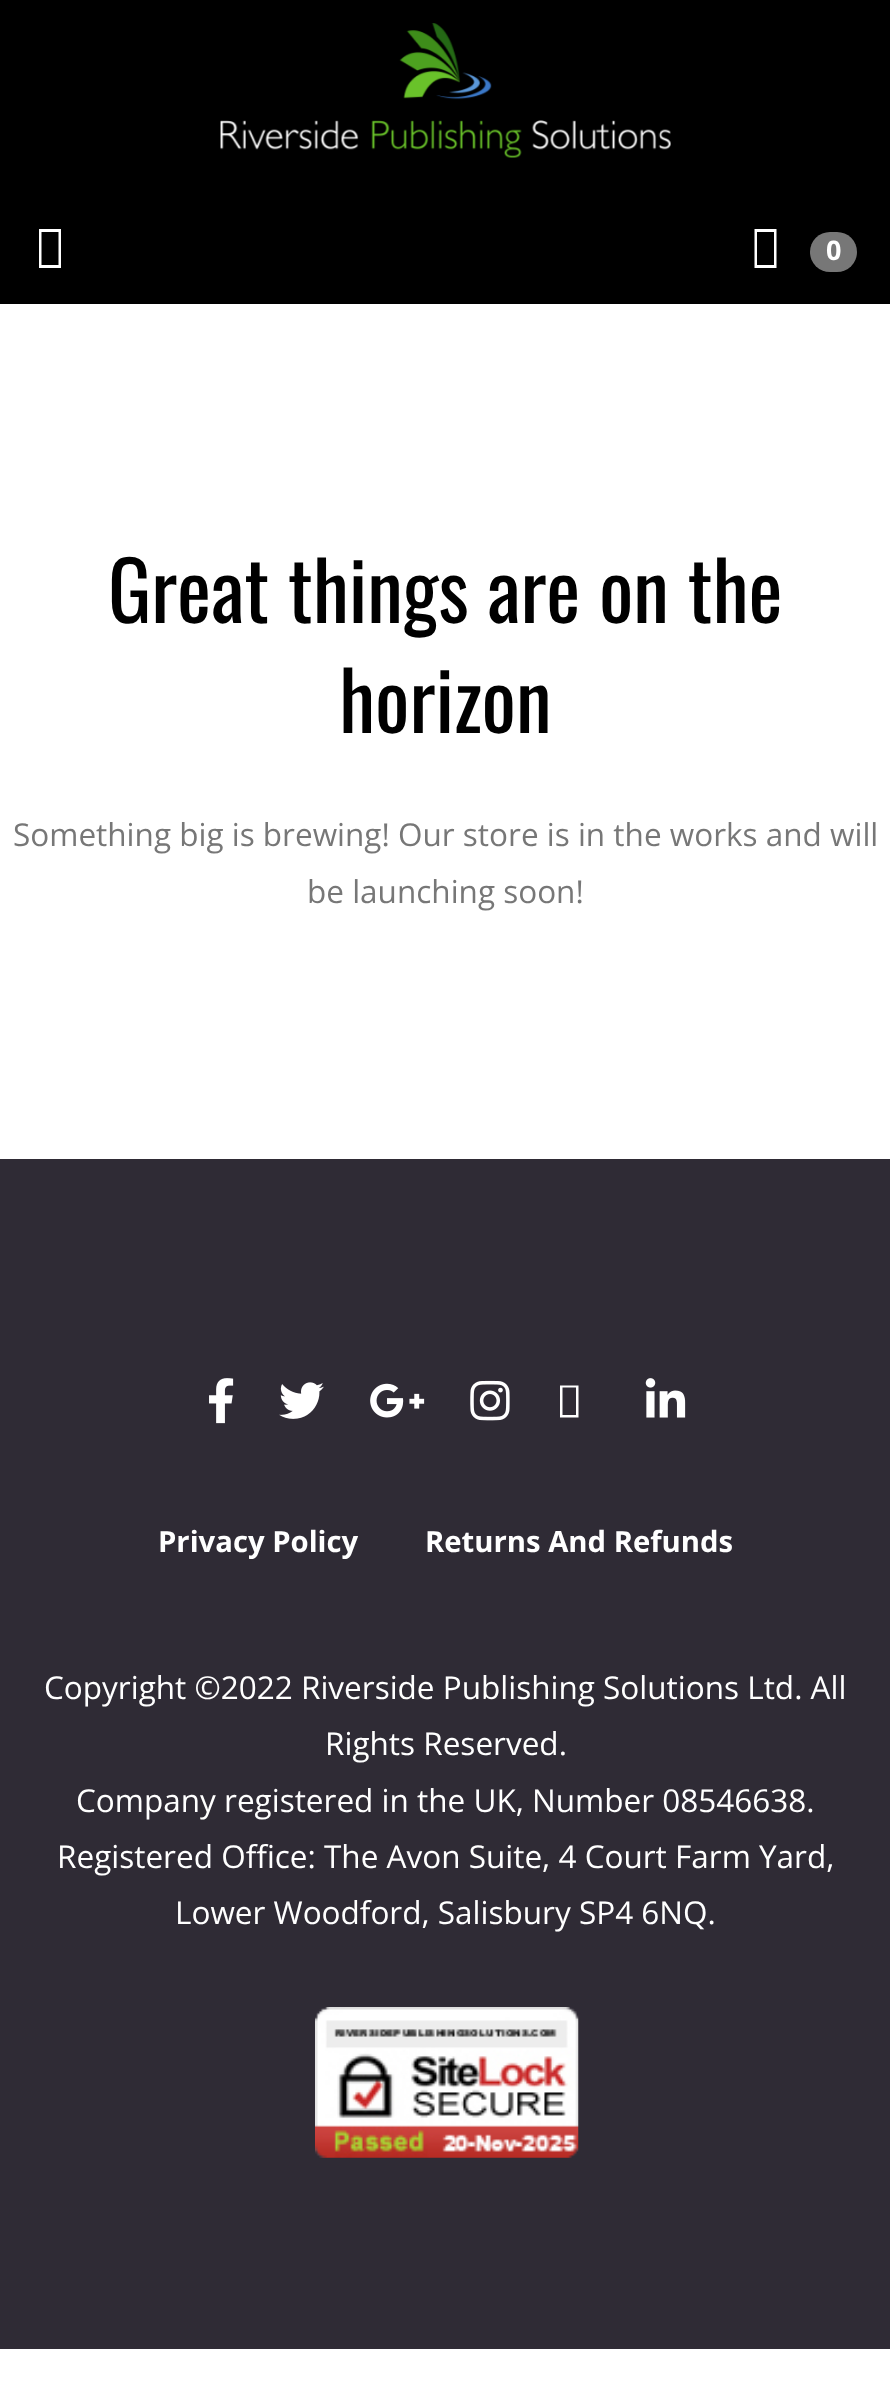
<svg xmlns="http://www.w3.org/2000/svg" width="890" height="2408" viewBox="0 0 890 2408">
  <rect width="100%" height="100%" fill="#ffffff"/>
  <rect x="0" y="0" width="890" height="304" fill="#000000"/>
  <image x="220" y="23" width="451" height="135" href="img1.png"/>
  <path d="M39 268V229H61V268ZM41.5 265H58.5V232H41.5Z" fill="#ffffff"/>
  <path d="M754.5 268V229H776.5V268ZM757 265H774V232H757Z" fill="#ffffff"/>
  <rect x="810" y="232" width="47" height="40" rx="20" fill="#777777"/>
  <text x="826" y="260" font-family="Open Sans" font-size="27" font-weight="bold" fill="#ffffff">0</text>
  <text x="108" y="623" font-family="Oswald" font-size="81" fill="#000000">Great things are on the</text>
  <text x="339" y="733" font-family="Oswald" font-size="81" fill="#000000">horizon</text>
  <text x="13" y="846" font-family="Open Sans" font-size="31.5" fill="#777777">Something big is brewing! Our store is in the works and will</text>
  <text x="307" y="903" font-family="Open Sans" font-size="31.5" fill="#777777">be launching soon!</text>
  <rect x="0" y="1159" width="890" height="1190" fill="#2f2b35"/>
  <image x="209" y="1378" width="25" height="46" href="img2.png"/>
  <image x="279" y="1382" width="45" height="37" href="img3.png"/>
  <image x="370" y="1383" width="55" height="35" href="img4.png"/>
  <image x="470" y="1380" width="40" height="41" href="img5.png"/>
  <path d="M560 1417.5V1385.5H578.5V1417.5ZM562.5 1415H576V1387.5H562.5Z" fill="#ffffff"/>
  <image x="645" y="1378" width="41" height="40" href="img6.png"/>
  <text x="158" y="1552" font-family="Open Sans" font-size="29.25" font-weight="bold" fill="#ffffff">Privacy Policy</text>
  <text x="425" y="1552" font-family="Open Sans" font-size="29.25" font-weight="bold" fill="#ffffff">Returns And Refunds</text>
  <text x="44" y="1699" font-family="Open Sans" font-size="31.5" fill="#ffffff">Copyright ©2022 Riverside Publishing Solutions Ltd. All</text>
  <text x="325" y="1755" font-family="Open Sans" font-size="31.5" fill="#ffffff">Rights Reserved.</text>
  <text x="76" y="1812" font-family="Open Sans" font-size="31.5" fill="#ffffff">Company registered in the UK, Number 08546638.</text>
  <text x="57" y="1868" font-family="Open Sans" font-size="31.5" fill="#ffffff">Registered Office: The Avon Suite, 4 Court Farm Yard,</text>
  <text x="175" y="1924" font-family="Open Sans" font-size="31.5" fill="#ffffff">Lower Woodford, Salisbury SP4 6NQ.</text>
  <image x="315" y="2007" width="264" height="151" href="img7.png"/>
</svg>
